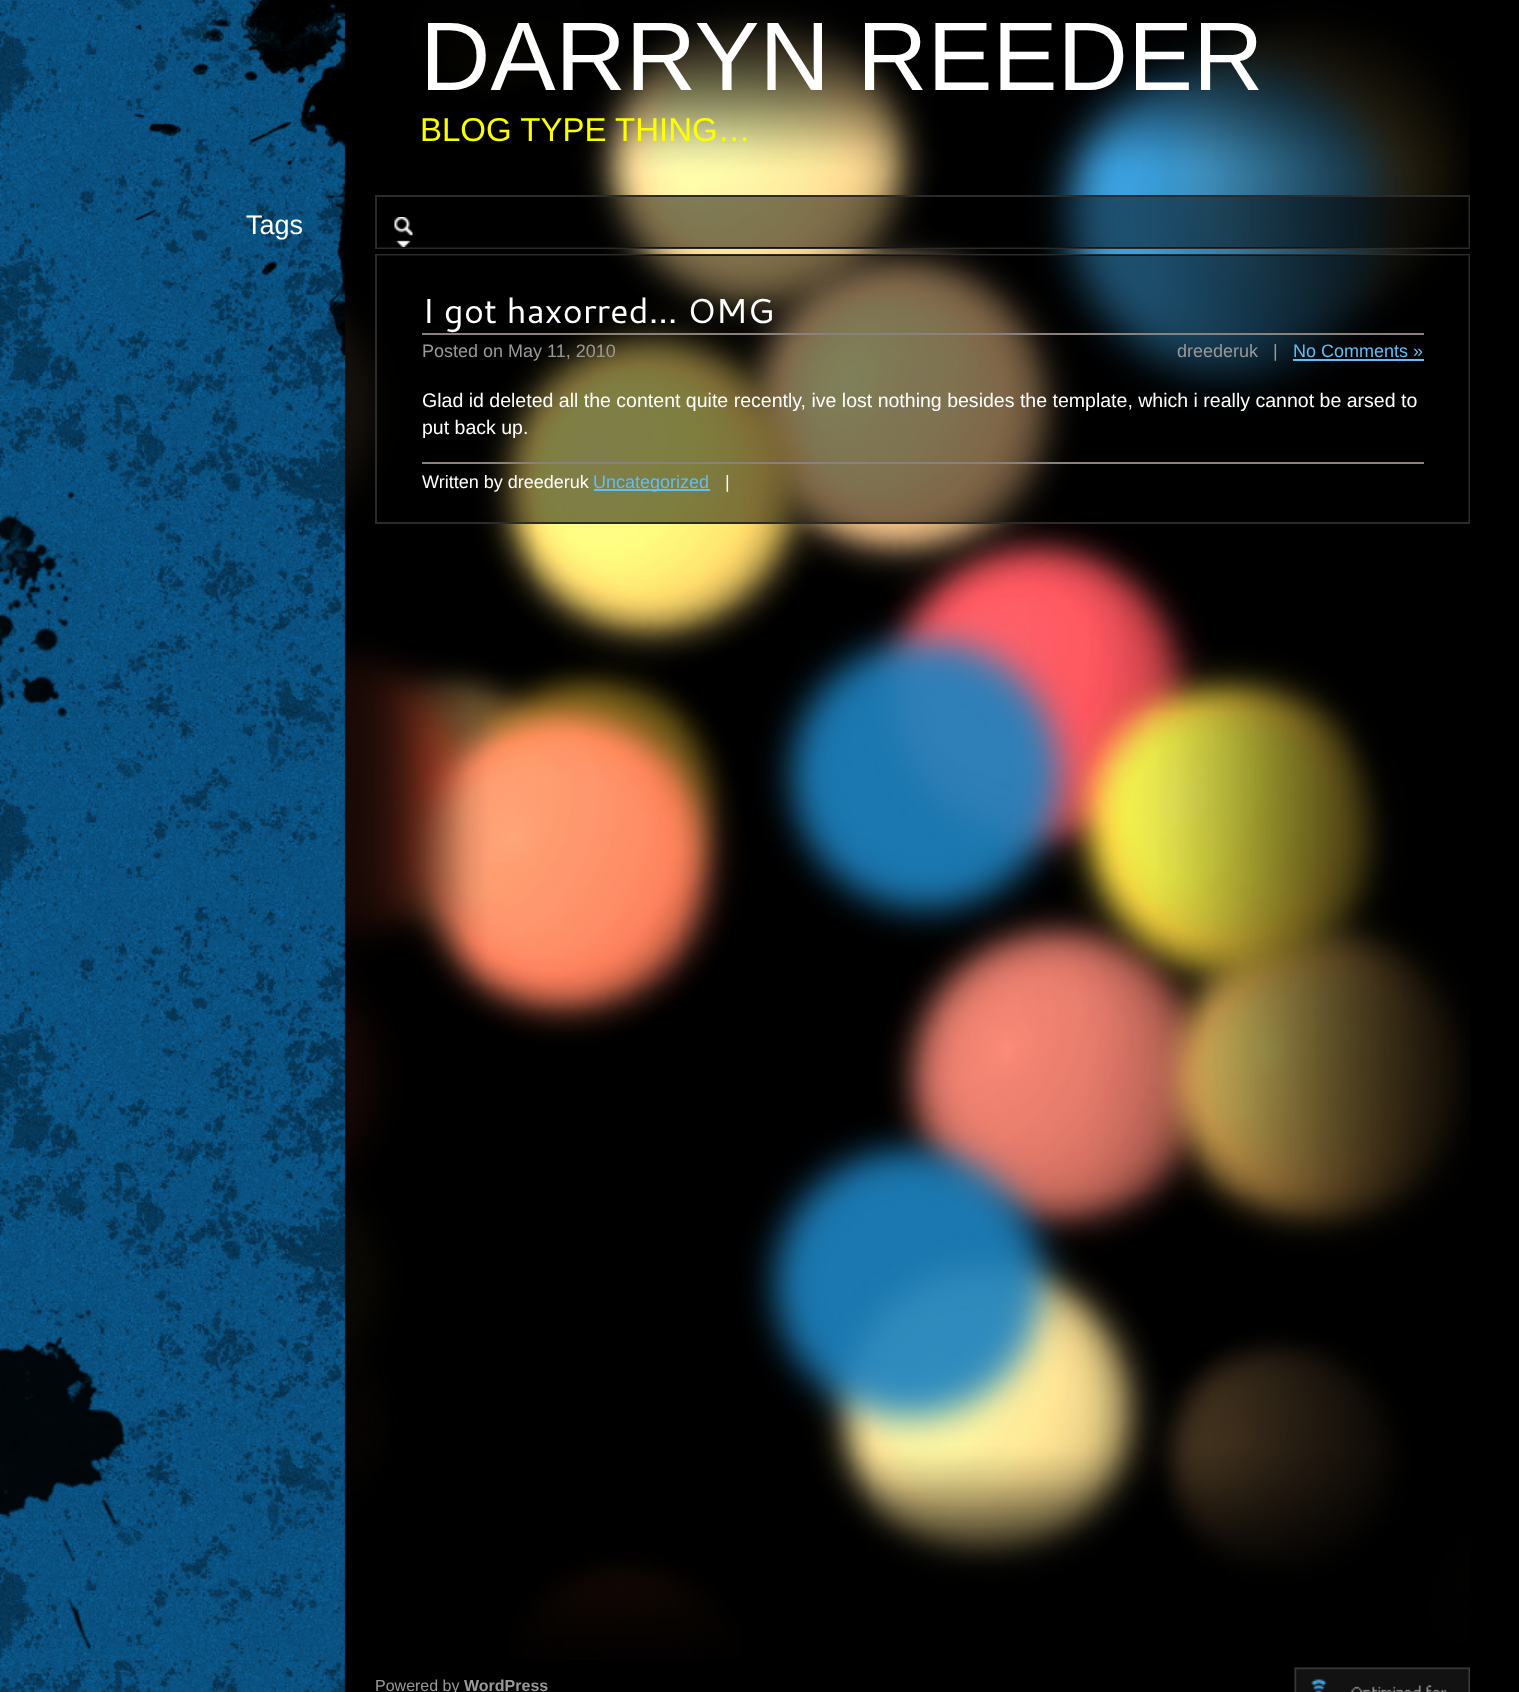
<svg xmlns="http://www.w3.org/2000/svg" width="1519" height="1692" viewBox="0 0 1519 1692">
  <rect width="100%" height="100%" fill="#000000"/>
  <image x="0" y="1660" width="346" height="32" href="img1.png"/>
  <image x="0" y="0" width="1470" height="1660" href="img2.png"/>
  <text x="246" y="234" font-family="Liberation Sans" font-size="27" fill="#ffffff">Tags</text>
  <text x="420" y="90" font-family="Liberation Sans" font-size="97.5" fill="#ffffff">DARRYN REEDER</text>
  <text x="420" y="141" font-family="Liberation Sans" font-size="33" fill="#fcff00">BLOG TYPE THING…</text>
  <rect x="376" y="196" width="1093" height="52" fill="none" stroke="#2b2b2b" stroke-width="2"/>
  <rect x="377" y="197" width="1092" height="51" fill="#000000" fill-opacity="0.5"/>
  <image x="394" y="217" width="19" height="30" href="img3.png"/>
  <rect x="376" y="255" width="1093" height="268" fill="none" stroke="#2b2b2b" stroke-width="2"/>
  <rect x="377" y="255" width="1092" height="267" fill="#000000" fill-opacity="0.5"/>
  <rect x="422" y="333" width="1002" height="2" fill="#8a807d"/>
  <text x="422" y="323" font-family="Cantarell" font-size="34.6" fill="#ffffff">I got haxorred… OMG</text>
  <text x="422" y="357" font-family="Liberation Sans" font-size="18" fill="#999999">Posted on May 11, 2010</text>
  <text x="1177" y="357" font-family="Liberation Sans" font-size="18" fill="#999999" xml:space="preserve">dreederuk   |</text>
  <text x="1293" y="357" font-family="Liberation Sans" font-size="18" fill="#60bef8">No Comments »</text>
  <rect x="1293" y="359" width="131" height="2" fill="#60bef8"/>
  <text x="422" y="407" font-family="Liberation Sans" font-size="19.55" fill="#ffffff">Glad id deleted all the content quite recently, ive lost nothing besides the template, which i really cannot be arsed to</text>
  <text x="422" y="434" font-family="Liberation Sans" font-size="19.55" fill="#ffffff">put back up.</text>
  <rect x="422" y="462" width="1002" height="2" fill="#8a817d"/>
  <text x="422" y="488" font-family="Liberation Sans" font-size="18" fill="#ffffff">Written by dreederuk</text>
  <rect x="594" y="489" width="116" height="2" fill="#60bef8"/>
  <text x="593" y="488" font-family="Liberation Sans" font-size="18" fill="#60bef8">Uncategorized</text>
  <text x="725" y="488" font-family="Liberation Sans" font-size="18" fill="#ffffff">|</text>
  <text x="375" y="1691" font-family="Liberation Sans" font-size="16" fill="#999999">Powered by</text>
  <text x="464" y="1691" font-family="Liberation Sans" font-size="16" font-weight="bold" fill="#999999">WordPress</text>
  <image x="1294" y="1667" width="176" height="25" href="img4.png"/>
</svg>
